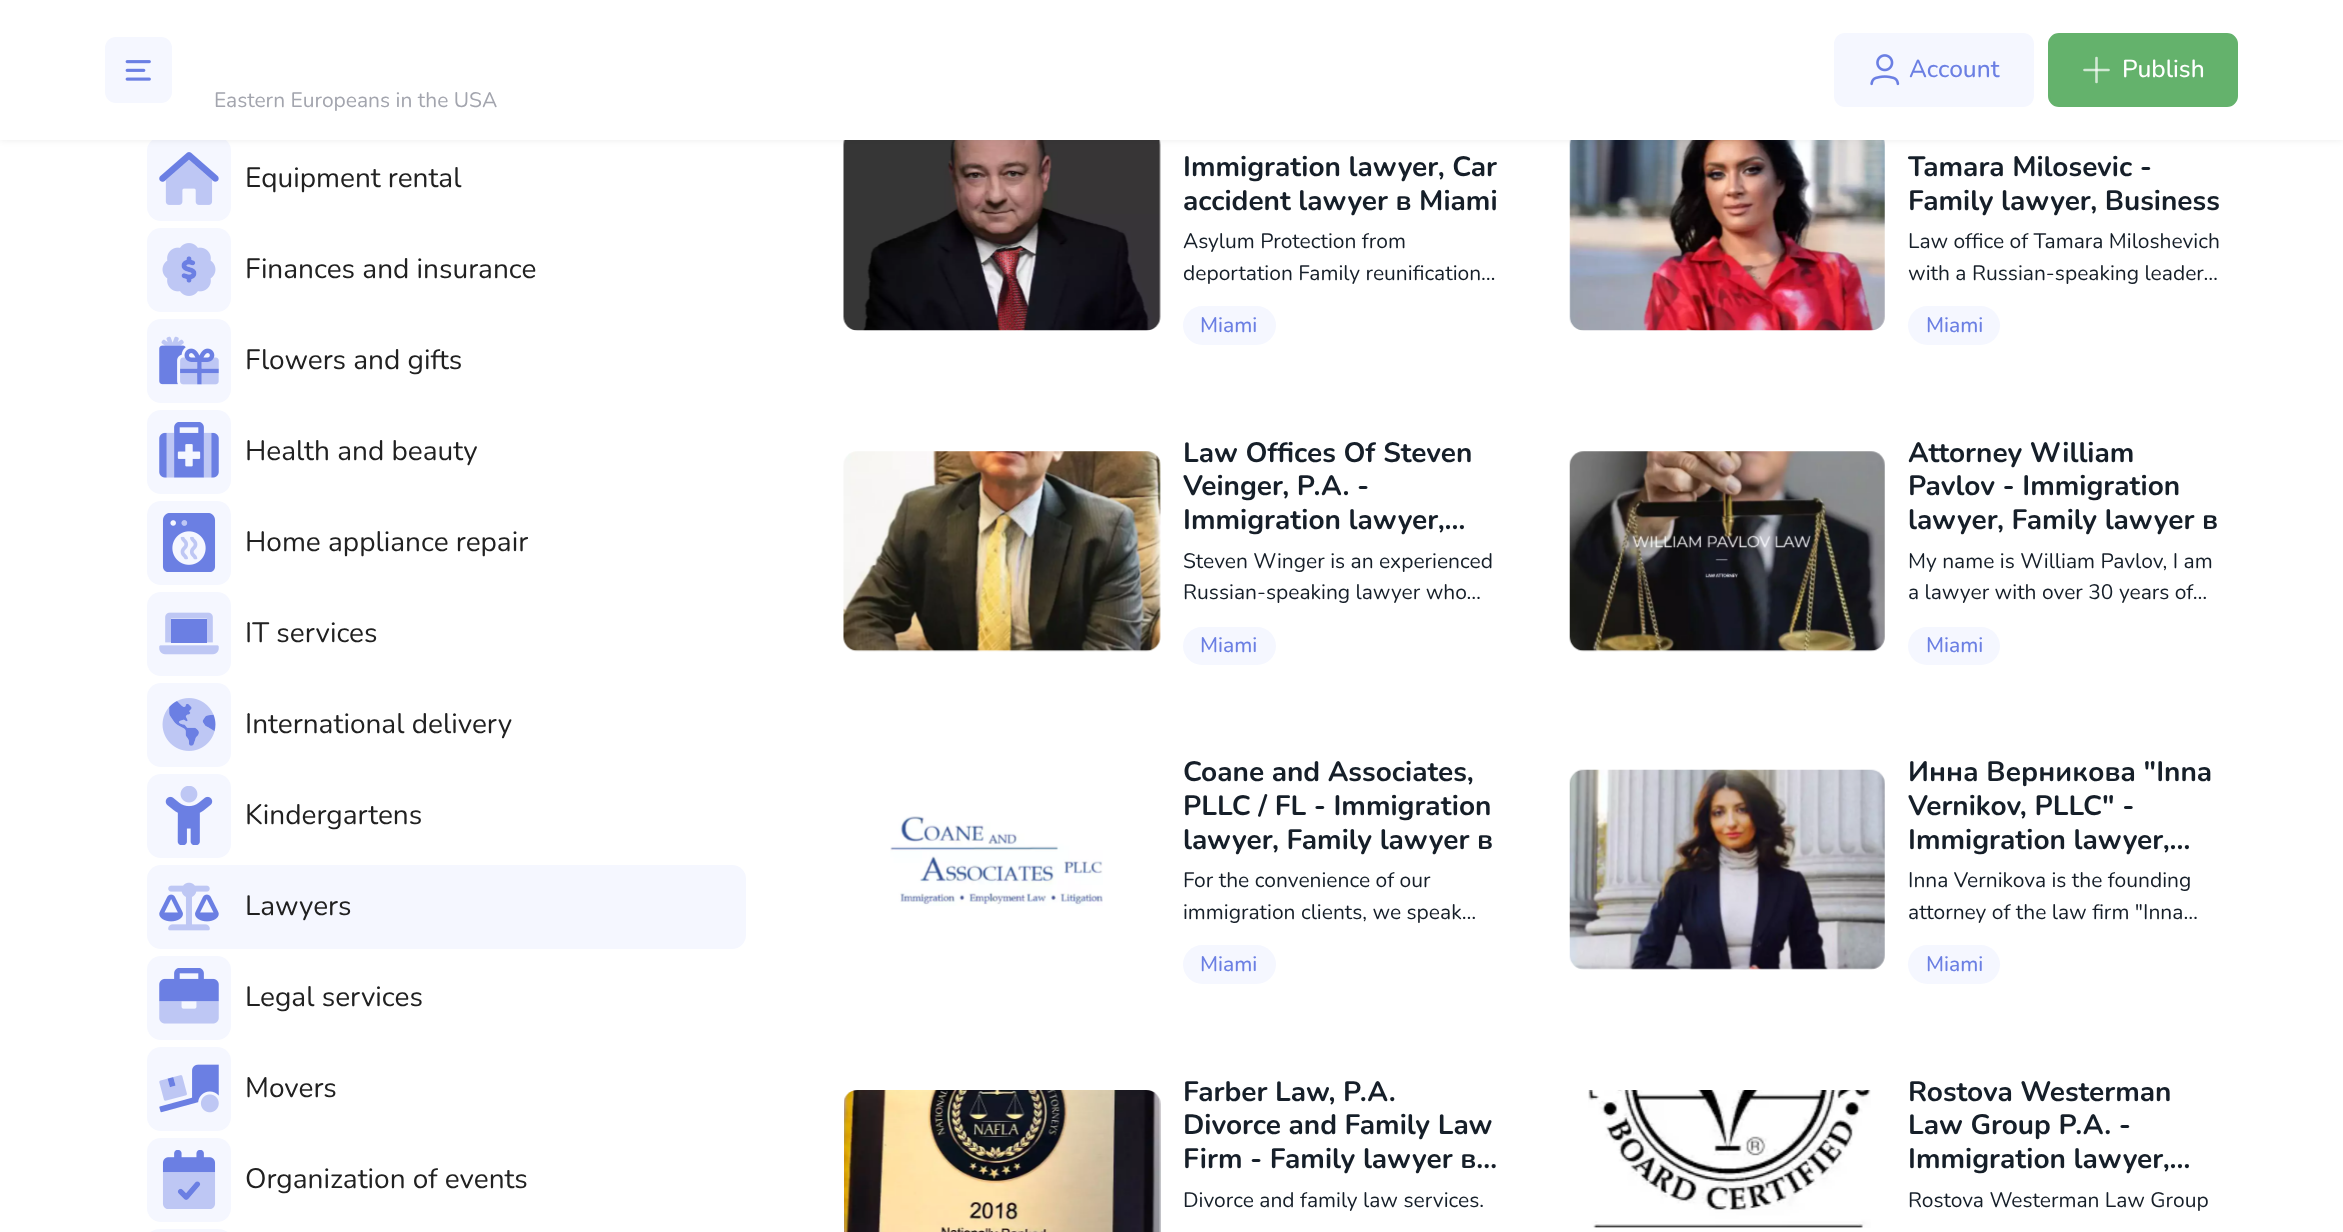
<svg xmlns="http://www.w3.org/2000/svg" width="2343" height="1232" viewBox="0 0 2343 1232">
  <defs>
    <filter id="blur1" x="-50%" y="-200%" width="200%" height="500%"><feGaussianBlur stdDeviation="3.5"/></filter>
  </defs>
  <rect width="100%" height="100%" fill="#ffffff"/>
  <rect x="147" y="137" width="84" height="84" rx="14" fill="#f5f7ff"/>
  <image x="843" y="140" width="318" height="191" href="img15.png"/>
  <image x="1569" y="140" width="316" height="191" href="img16.png"/>
  <rect x="0" y="0" width="2343" height="140" fill="#121212" fill-opacity="0.08" filter="url(#blur1)"/>
  <rect x="0" y="0" width="2343" height="140" fill="#ffffff"/>
  <rect x="1834" y="33" width="200" height="74" rx="11" fill="#f5f7ff"/>
  <image x="1870" y="54" width="30" height="32" href="img1.png"/>
  <text x="1909" y="77" font-family="Nunito" font-size="24.5" font-weight="500" fill="#6b7fe3">Account</text>
  <rect x="2049" y="34" width="188" height="72" rx="10" fill="#64b26c" stroke="#64b26c" stroke-width="2"/>
  <path d="M2096.5 58V82" fill="none" stroke="#d1e8d3" stroke-width="2.6" stroke-linecap="round" stroke-linejoin="round"/>
  <path d="M2084.5 70H2108.5" fill="none" stroke="#ffffff" stroke-opacity="0.7" stroke-width="2.6" stroke-linecap="round" stroke-linejoin="round"/>
  <text x="2122" y="77" font-family="Nunito" font-size="24.5" font-weight="500" fill="#ffffff">Publish</text>
  <rect x="105" y="37" width="67" height="66" rx="11" fill="#f5f7ff"/>
  <image x="125" y="60" width="26" height="21" href="img2.png"/>
  <text x="214" y="107" font-family="Nunito" font-size="21" fill="#a3a5ae">Eastern Europeans in the USA</text>
  <image x="159" y="152" width="60" height="53" href="img3.png"/>
  <text x="245" y="187" font-family="Nunito" font-size="28" fill="#212121">Equipment rental</text>
  <rect x="147" y="228" width="84" height="84" rx="14" fill="#f5f7ff"/>
  <image x="162" y="243" width="54" height="53" href="img4.png"/>
  <text x="245" y="278" font-family="Nunito" font-size="28" fill="#212121">Finances and insurance</text>
  <rect x="147" y="319" width="84" height="84" rx="14" fill="#f5f7ff"/>
  <image x="159" y="336" width="60" height="49" href="img5.png"/>
  <text x="245" y="369" font-family="Nunito" font-size="28" fill="#212121">Flowers and gifts</text>
  <rect x="147" y="410" width="84" height="84" rx="14" fill="#f5f7ff"/>
  <image x="159" y="422" width="60" height="56" href="img6.png"/>
  <text x="245" y="460" font-family="Nunito" font-size="28" fill="#212121">Health and beauty</text>
  <rect x="147" y="501" width="84" height="84" rx="14" fill="#f5f7ff"/>
  <image x="162" y="513" width="54" height="59" href="img7.png"/>
  <text x="245" y="551" font-family="Nunito" font-size="28" fill="#212121">Home appliance repair</text>
  <rect x="147" y="592" width="84" height="84" rx="14" fill="#f5f7ff"/>
  <image x="159" y="612" width="60" height="43" href="img8.png"/>
  <text x="245" y="642" font-family="Nunito" font-size="28" fill="#212121">IT services</text>
  <rect x="147" y="683" width="84" height="84" rx="14" fill="#f5f7ff"/>
  <image x="162" y="698" width="54" height="53" href="img9.png"/>
  <text x="245" y="733" font-family="Nunito" font-size="28" fill="#212121">International delivery</text>
  <rect x="147" y="774" width="84" height="84" rx="14" fill="#f5f7ff"/>
  <image x="165" y="786" width="48" height="59" href="img10.png"/>
  <text x="245" y="824" font-family="Nunito" font-size="28" fill="#212121">Kindergartens</text>
  <rect x="147" y="865" width="599" height="84" rx="14" fill="#f5f7ff"/>
  <image x="159" y="882" width="60" height="49" href="img11.png"/>
  <text x="245" y="915" font-family="Nunito" font-size="28" fill="#212121">Lawyers</text>
  <rect x="147" y="956" width="84" height="84" rx="14" fill="#f5f7ff"/>
  <image x="159" y="968" width="60" height="56" href="img12.png"/>
  <text x="245" y="1006" font-family="Nunito" font-size="28" fill="#212121">Legal services</text>
  <rect x="147" y="1047" width="84" height="84" rx="14" fill="#f5f7ff"/>
  <image x="159" y="1064" width="60" height="49" href="img13.png"/>
  <text x="245" y="1097" font-family="Nunito" font-size="28" fill="#212121">Movers</text>
  <rect x="147" y="1138" width="84" height="84" rx="14" fill="#f5f7ff"/>
  <image x="162" y="1150" width="54" height="59" href="img14.png"/>
  <text x="245" y="1188" font-family="Nunito" font-size="28" fill="#212121">Organization of events</text>
  <rect x="147" y="1229" width="84" height="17" rx="14" fill="#f5f7ff"/>
  <text x="1183" y="176" font-family="Nunito" font-size="28" font-weight="bold" fill="#161f29">Immigration lawyer, Car</text>
  <text x="1183" y="210" font-family="Nunito" font-size="28" font-weight="bold" fill="#161f29">accident lawyer в Miami</text>
  <text x="1183" y="248" font-family="Nunito" font-size="21" fill="#161f29">Asylum Protection from</text>
  <text x="1183" y="280" font-family="Nunito" font-size="21" fill="#161f29">deportation Family reunification…</text>
  <rect x="1183" y="306" width="93" height="39" rx="19.5" fill="#f5f7ff"/>
  <text x="1200" y="332" font-family="Nunito" font-size="21" font-weight="500" fill="#6b7fe3">Miami</text>
  <text x="1908" y="176" font-family="Nunito" font-size="28" font-weight="bold" fill="#161f29">Tamara Milosevic -</text>
  <text x="1908" y="210" font-family="Nunito" font-size="28" font-weight="bold" fill="#161f29">Family lawyer, Business</text>
  <text x="1908" y="248" font-family="Nunito" font-size="21" fill="#161f29">Law office of Tamara Miloshevich</text>
  <text x="1908" y="280" font-family="Nunito" font-size="21" fill="#161f29">with a Russian-speaking leader…</text>
  <rect x="1908" y="306" width="92" height="39" rx="19.5" fill="#f5f7ff"/>
  <text x="1926" y="332" font-family="Nunito" font-size="21" font-weight="500" fill="#6b7fe3">Miami</text>
  <image x="843" y="451" width="318" height="201" href="img17.png"/>
  <text x="1183" y="462" font-family="Nunito" font-size="28" font-weight="bold" fill="#161f29">Law Offices Of Steven</text>
  <text x="1183" y="495" font-family="Nunito" font-size="28" font-weight="bold" fill="#161f29">Veinger, P.A. -</text>
  <text x="1183" y="529" font-family="Nunito" font-size="28" font-weight="bold" fill="#161f29">Immigration lawyer,…</text>
  <text x="1183" y="568" font-family="Nunito" font-size="21" fill="#161f29">Steven Winger is an experienced</text>
  <text x="1183" y="599" font-family="Nunito" font-size="21" fill="#161f29">Russian-speaking lawyer who…</text>
  <rect x="1183" y="627" width="93" height="38" rx="19" fill="#f5f7ff"/>
  <text x="1200" y="652" font-family="Nunito" font-size="21" font-weight="500" fill="#6b7fe3">Miami</text>
  <image x="1569" y="451" width="316" height="201" href="img18.png"/>
  <text x="1908" y="462" font-family="Nunito" font-size="28" font-weight="bold" fill="#161f29">Attorney William</text>
  <text x="1908" y="495" font-family="Nunito" font-size="28" font-weight="bold" fill="#161f29">Pavlov - Immigration</text>
  <text x="1908" y="529" font-family="Nunito" font-size="28" font-weight="bold" fill="#161f29">lawyer, Family lawyer в</text>
  <text x="1908" y="568" font-family="Nunito" font-size="21" fill="#161f29">My name is William Pavlov, I am</text>
  <text x="1908" y="599" font-family="Nunito" font-size="21" fill="#161f29">a lawyer with over 30 years of…</text>
  <rect x="1908" y="627" width="92" height="38" rx="19" fill="#f5f7ff"/>
  <text x="1926" y="652" font-family="Nunito" font-size="21" font-weight="500" fill="#6b7fe3">Miami</text>
  <image x="890" y="816" width="213" height="90" href="img19.png"/>
  <text x="1183" y="781" font-family="Nunito" font-size="28" font-weight="bold" fill="#161f29">Coane and Associates,</text>
  <text x="1183" y="815" font-family="Nunito" font-size="28" font-weight="bold" fill="#161f29">PLLC / FL - Immigration</text>
  <text x="1183" y="849" font-family="Nunito" font-size="28" font-weight="bold" fill="#161f29">lawyer, Family lawyer в</text>
  <text x="1183" y="887" font-family="Nunito" font-size="21" fill="#161f29">For the convenience of our</text>
  <text x="1183" y="919" font-family="Nunito" font-size="21" fill="#161f29">immigration clients, we speak…</text>
  <rect x="1183" y="945" width="93" height="39" rx="19.5" fill="#f5f7ff"/>
  <text x="1200" y="971" font-family="Nunito" font-size="21" font-weight="500" fill="#6b7fe3">Miami</text>
  <image x="1569" y="769" width="316" height="201" href="img20.png"/>
  <text x="1908" y="781" font-family="Nunito" font-size="28" font-weight="bold" fill="#161f29">Инна Верникова "Inna</text>
  <text x="1908" y="815" font-family="Nunito" font-size="28" font-weight="bold" fill="#161f29">Vernikov, PLLC" -</text>
  <text x="1908" y="849" font-family="Nunito" font-size="28" font-weight="bold" fill="#161f29">Immigration lawyer,…</text>
  <text x="1908" y="887" font-family="Nunito" font-size="21" fill="#161f29">Inna Vernikova is the founding</text>
  <text x="1908" y="919" font-family="Nunito" font-size="21" fill="#161f29">attorney of the law firm "Inna…</text>
  <rect x="1908" y="945" width="92" height="39" rx="19.5" fill="#f5f7ff"/>
  <text x="1926" y="971" font-family="Nunito" font-size="21" font-weight="500" fill="#6b7fe3">Miami</text>
  <image x="844" y="1090" width="317" height="142" href="img21.png"/>
  <text x="1183" y="1101" font-family="Nunito" font-size="28" font-weight="bold" fill="#161f29">Farber Law, P.A.</text>
  <text x="1183" y="1134" font-family="Nunito" font-size="28" font-weight="bold" fill="#161f29">Divorce and Family Law</text>
  <text x="1183" y="1168" font-family="Nunito" font-size="28" font-weight="bold" fill="#161f29">Firm - Family lawyer в…</text>
  <text x="1183" y="1207" font-family="Nunito" font-size="21" fill="#161f29">Divorce and family law services.</text>
  <image x="1588" y="1090" width="283" height="138" href="img22.png"/>
  <text x="1908" y="1101" font-family="Nunito" font-size="28" font-weight="bold" fill="#161f29">Rostova Westerman</text>
  <text x="1908" y="1134" font-family="Nunito" font-size="28" font-weight="bold" fill="#161f29">Law Group P.A. -</text>
  <text x="1908" y="1168" font-family="Nunito" font-size="28" font-weight="bold" fill="#161f29">Immigration lawyer,…</text>
  <text x="1908" y="1207" font-family="Nunito" font-size="21" fill="#161f29">Rostova Westerman Law Group</text>
</svg>
